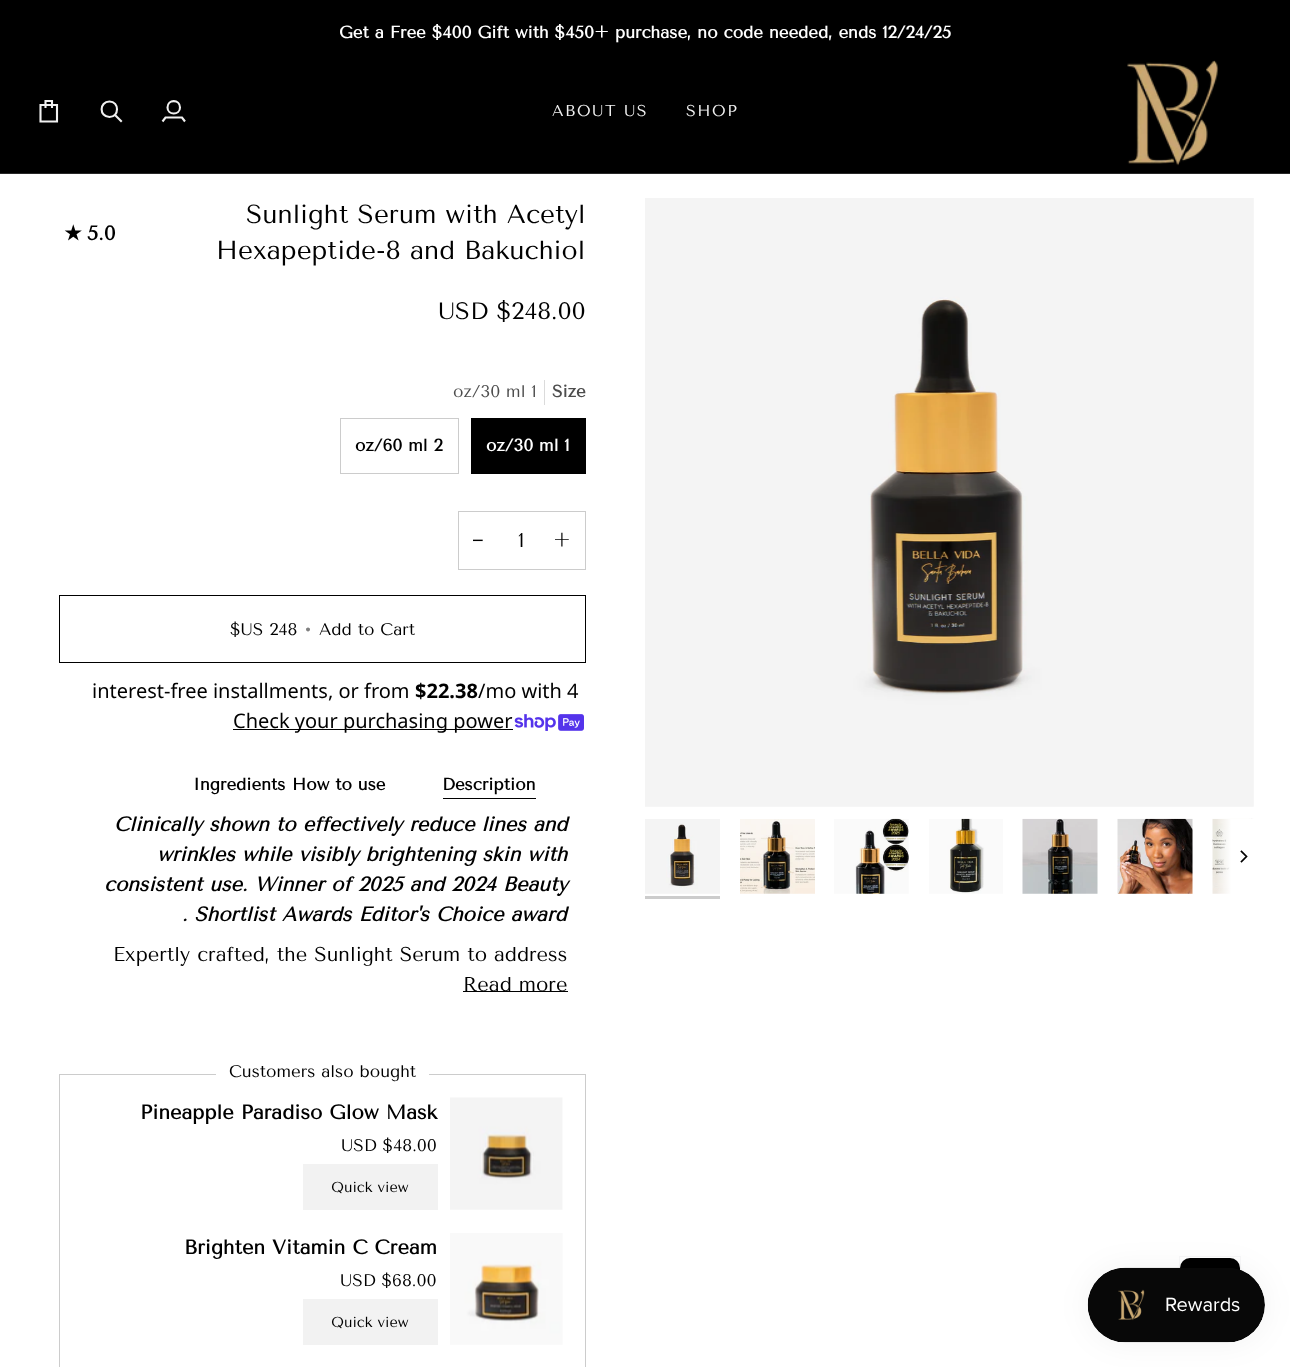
<svg xmlns="http://www.w3.org/2000/svg" width="1290" height="1367" viewBox="0 0 1290 1367">
  <defs>
    <linearGradient id="g1" gradientUnits="userSpaceOnUse" x1="1216" y1="856" x2="1254" y2="856"><stop offset="0" stop-color="#ffffff" stop-opacity="0"/><stop offset="0.4" stop-color="#ffffff"/></linearGradient>
    <filter id="blur1" x="-50%" y="-200%" width="200%" height="500%"><feGaussianBlur stdDeviation="2.5"/></filter>
    <filter id="blur2" x="-50%" y="-200%" width="200%" height="500%"><feGaussianBlur stdDeviation="15.5"/></filter>
  </defs>
  <rect width="100%" height="100%" fill="#ffffff"/>
  <rect x="0" y="0" width="1290" height="173" fill="#000000"/>
  <text x="339" y="38" font-family="Tenor Sans" font-size="16.9" font-weight="bold" fill="#ffffff">Get a Free $400 Gift with $450+ purchase, no code needed, ends 12/24/25</text>
  <rect x="0" y="173" width="1290" height="1" fill="#282828"/>
  <path d="M40.5 105H57V121.5H40.5ZM45.5 108V101H52V108" fill="none" stroke="#f1f1f1" stroke-width="2.1"/>
  <path d="M109.5 117C119.5 117 119.5 101.5 109.5 101.5C99 101.5 99 117 109.5 117ZM121 121L115 115" fill="none" stroke="#f1f1f1" stroke-width="2.1" stroke-linecap="square"/>
  <path d="M162.5 121.5L165.5 117.5H182L185 121.5M180 107.5C180 115.5 167.5 115.5 167.5 107.5C167.5 99 180 99 180 107.5Z" fill="none" stroke="#f1f1f1" stroke-width="2.1"/>
  <text x="552" y="116" font-family="Tenor Sans" font-size="15.75" letter-spacing="1.5" fill="#f1f1f1">ABOUT US</text>
  <text x="686" y="116" font-family="Tenor Sans" font-size="15.75" letter-spacing="1.5" fill="#f1f1f1">SHOP</text>
  <image x="1127" y="60" width="92" height="106" href="img1.png"/>
  <text x="64" y="240" font-family="DejaVu Sans" font-size="20" font-weight="bold" fill="#000000">★</text>
  <text x="87" y="240" font-family="Tenor Sans" font-size="20" font-weight="bold" fill="#000000">5.0</text>
  <text x="246" y="223" font-family="Tenor Sans" font-size="26.1" fill="#000000">Sunlight Serum with Acetyl</text>
  <text x="216" y="259" font-family="Tenor Sans" font-size="26.1" fill="#000000">Hexapeptide-8 and Bakuchiol</text>
  <text x="438" y="319" font-family="Tenor Sans" font-size="23.75" fill="#000000">USD $248.00</text>
  <rect x="544" y="380" width="1" height="25" fill="#dbdbdb"/>
  <text x="453" y="397" font-family="Tenor Sans" font-size="16.9" fill="#4d4d4d">oz/30 ml 1</text>
  <text x="552" y="397" font-family="Tenor Sans" font-size="16.9" font-weight="bold" fill="#4d4d4d">Size</text>
  <rect x="340.5" y="418.5" width="118" height="55" fill="none" stroke="#cccccc"/>
  <text x="355" y="451" font-family="Tenor Sans" font-size="16.9" font-weight="bold" fill="#000000">oz/60 ml 2</text>
  <rect x="471" y="418" width="115" height="56" fill="#000000"/>
  <text x="486" y="451" font-family="Tenor Sans" font-size="16.9" font-weight="bold" fill="#ffffff">oz/30 ml 1</text>
  <rect x="458.5" y="511.5" width="127" height="58" fill="none" stroke="#cccccc"/>
  <text x="472" y="547" font-family="Liberation Sans" font-size="20" fill="#000000">−</text>
  <text x="518" y="547" font-family="Tenor Sans" font-size="20" fill="#000000">1</text>
  <text x="553" y="547" font-family="Tenor Sans" font-size="20" fill="#000000">+</text>
  <rect x="59.5" y="595.5" width="526" height="67" fill="none" stroke="#000000"/>
  <text x="230" y="635" font-family="Tenor Sans" font-size="16.9" fill="#000000">$US 248</text>
  <text x="304" y="635" font-family="Tenor Sans" font-size="16.9" fill="#808080">•</text>
  <text x="319" y="635" font-family="Tenor Sans" font-size="16.9" fill="#000000">Add to Cart</text>
  <text x="92" y="698" font-family="Noto Sans" font-size="20" fill="#000000">interest-free installments, or from</text>
  <text x="415" y="698" font-family="Noto Sans" font-size="20" font-weight="bold" fill="#000000">$22.38</text>
  <text x="478" y="698" font-family="Noto Sans" font-size="20" fill="#000000">/mo with</text>
  <text x="567" y="698" font-family="Noto Sans" font-size="20" fill="#000000">4</text>
  <image x="514" y="714" width="70" height="17" href="img2.png"/>
  <rect x="233" y="729" width="280" height="1" fill="#000000"/>
  <text x="233" y="728" font-family="Noto Sans" font-size="20" fill="#000000">Check your purchasing power</text>
  <text x="193" y="790" font-family="Tenor Sans" font-size="16.9" font-weight="bold" fill="#000000">Ingredients</text>
  <text x="292" y="790" font-family="Tenor Sans" font-size="16.9" font-weight="bold" fill="#000000">How to use</text>
  <rect x="443" y="798" width="93" height="1" fill="#000000"/>
  <text x="442" y="790" font-family="Tenor Sans" font-size="16.9" font-weight="bold" fill="#000000">Description</text>
  <text x="114" y="831" font-family="Tenor Sans" font-size="20" font-weight="bold" font-style="italic" fill="#000000">Clinically shown to effectively reduce lines and</text>
  <text x="157" y="861" font-family="Tenor Sans" font-size="20" font-weight="bold" font-style="italic" fill="#000000">wrinkles while visibly brightening skin with</text>
  <text x="104" y="891" font-family="Tenor Sans" font-size="20" font-weight="bold" font-style="italic" fill="#000000">consistent use. Winner of 2025 and 2024 Beauty</text>
  <text x="182" y="921" font-family="Tenor Sans" font-size="20" font-weight="bold" font-style="italic" fill="#000000">. Shortlist Awards Editor's Choice award</text>
  <text x="113" y="961" font-family="Tenor Sans" font-size="20" fill="#000000">Expertly crafted, the Sunlight Serum to address</text>
  <rect x="463" y="991" width="105" height="1" fill="#000000"/>
  <text x="463" y="991" font-family="Tenor Sans" font-size="20" fill="#000000">Read more</text>
  <rect x="59.5" y="1074.5" width="526" height="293" fill="none" stroke="#cccccc"/>
  <rect x="216" y="1074" width="213" height="1" fill="#ffffff"/>
  <text x="229" y="1077" font-family="Tenor Sans" font-size="16.9" fill="#000000">Customers also bought</text>
  <text x="140" y="1119" font-family="Tenor Sans" font-size="20" font-weight="bold" fill="#000000">Pineapple Paradiso Glow Mask</text>
  <text x="341" y="1151" font-family="Tenor Sans" font-size="16.9" fill="#000000">USD $48.00</text>
  <rect x="303" y="1164" width="135" height="46" fill="#f2f2f2"/>
  <text x="331" y="1192" font-family="Tenor Sans" font-size="14.5" fill="#000000">Quick view</text>
  <image x="450" y="1097" width="113" height="113" href="img3.png"/>
  <text x="184" y="1254" font-family="Tenor Sans" font-size="20" font-weight="bold" fill="#000000">Brighten Vitamin C Cream</text>
  <text x="340" y="1286" font-family="Tenor Sans" font-size="16.9" fill="#000000">USD $68.00</text>
  <rect x="303" y="1299" width="135" height="46" fill="#f2f2f2"/>
  <text x="331" y="1327" font-family="Tenor Sans" font-size="14.5" fill="#000000">Quick view</text>
  <image x="450" y="1233" width="113" height="112" href="img4.png"/>
  <image x="645" y="198" width="609" height="609" href="img5.png"/>
  <image x="645" y="819" width="75" height="75" href="img6.png"/>
  <rect x="645" y="896" width="75" height="3" fill="#cccccc"/>
  <image x="740" y="819" width="75" height="75" href="img7.png"/>
  <image x="834" y="818" width="75" height="76" href="img8.png"/>
  <image x="929" y="818" width="74" height="76" href="img9.png"/>
  <image x="1022" y="818" width="76" height="76" href="img10.png"/>
  <image x="1117" y="818" width="76" height="76" href="img11.png"/>
  <image x="1212" y="818" width="42" height="76" href="img12.png"/>
  <rect x="1216" y="819" width="38" height="75" fill="url(#g1)"/>
  <path d="M1241.5 861.5L1246.5 856.5L1241.5 851.5" fill="none" stroke="#000000" stroke-width="1.7" stroke-linecap="square"/>
  <rect x="1180" y="1263" width="60" height="60" rx="10" fill="#373f47" fill-opacity="0.08" filter="url(#blur1)"/>
  <rect x="1179.5" y="1256.5" width="61" height="62" fill="none" stroke="#373f47" stroke-opacity="0.04"/>
  <rect x="1180" y="1258" width="60" height="60" rx="10" fill="#000000"/>
  <rect x="1088" y="1268" width="177" height="75" rx="37.5" fill="#000000" fill-opacity="0.05" filter="url(#blur2)"/>
  <image x="1087" y="1267" width="178" height="76" href="img13.png"/>
</svg>
